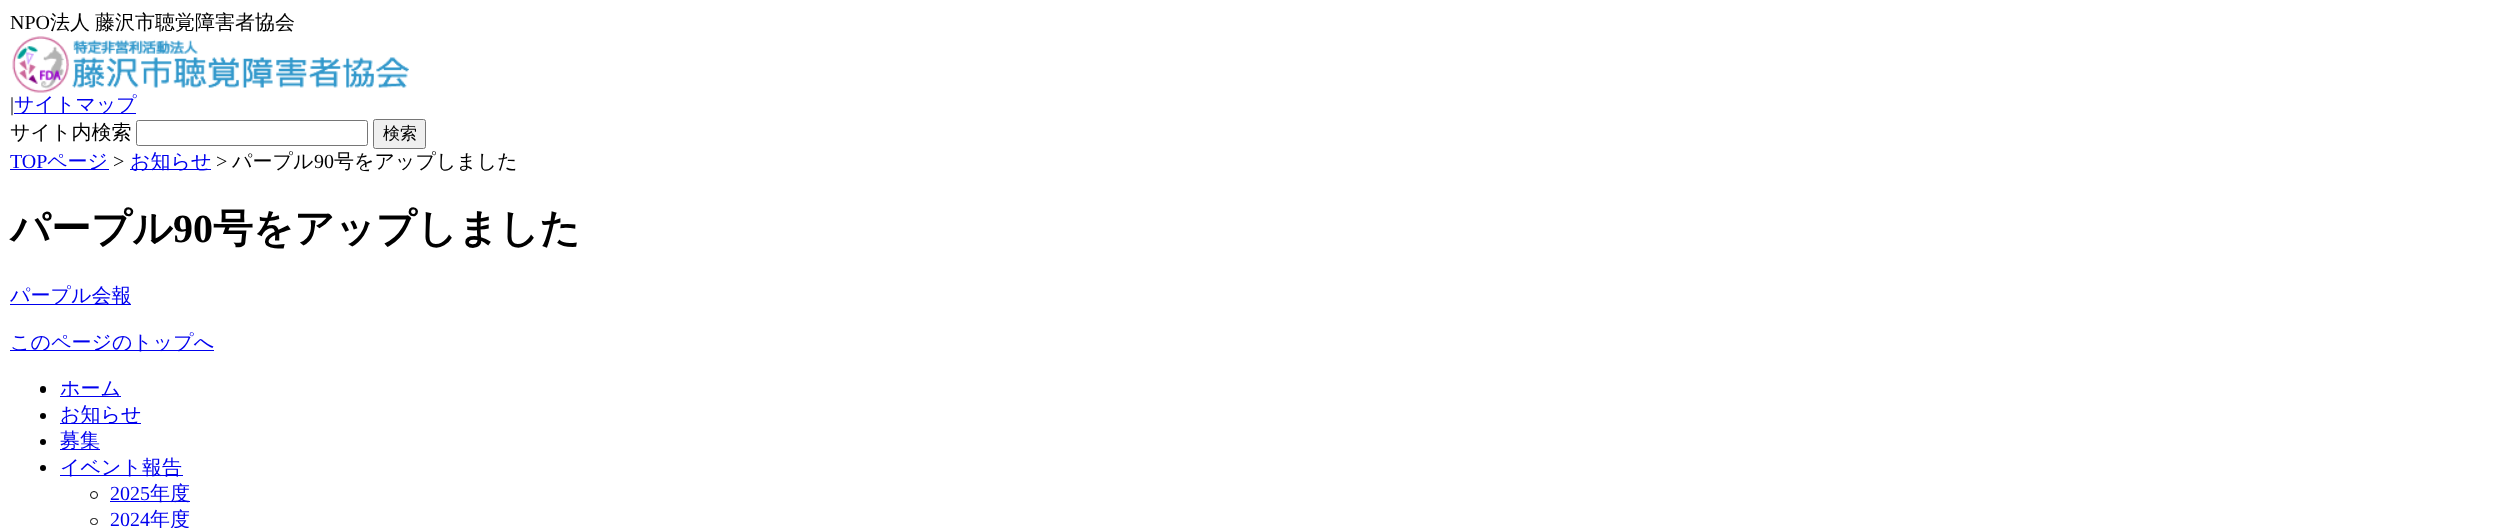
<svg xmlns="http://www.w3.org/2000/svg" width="2503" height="528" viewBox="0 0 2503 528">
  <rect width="100%" height="100%" fill="#ffffff"/>
  <text x="10" y="29" font-family="Liberation Serif" font-size="20" fill="#000000">NPO</text>
  <text x="50" y="29" word-spacing="-1" font-family="WenQuanYi Zen Hei" font-size="20" font-weight="500" fill="#000000">法人 藤沢市聴覚障害者協会</text>
  <image x="12" y="36" width="397" height="57" href="img1.png"/>
  <text x="10" y="111" font-family="Liberation Serif" font-size="20" fill="#000000">|</text>
  <rect x="14" y="113" width="122" height="1" fill="#0000ee"/>
  <text x="14" y="111" font-family="WenQuanYi Zen Hei" font-size="20" font-weight="500" fill="#0000ee">サイトマップ</text>
  <text x="10" y="139" font-family="WenQuanYi Zen Hei" font-size="20" font-weight="500" fill="#000000">サイト内検索</text>
  <rect x="136.5" y="120.5" width="231" height="25" rx="2" fill="none" stroke="#767676"/>
  <rect x="373.5" y="119.5" width="52" height="29" rx="2" fill="#efefef" stroke="#767676"/>
  <text x="383" y="139" font-family="WenQuanYi Zen Hei" font-size="17" font-weight="500" fill="#000000">検索</text>
  <text x="10" y="168" font-family="Liberation Serif" font-size="20" fill="#0000ee">TOP</text>
  <rect x="10" y="169" width="99" height="1" fill="#0000ee"/>
  <text x="47" y="168" font-family="WenQuanYi Zen Hei" font-size="20" font-weight="500" fill="#0000ee">ページ</text>
  <text x="113" y="168" font-family="Liberation Serif" font-size="20" fill="#000000">&gt;</text>
  <rect x="130" y="169" width="81" height="1" fill="#0000ee"/>
  <text x="130" y="168" font-family="WenQuanYi Zen Hei" font-size="20" font-weight="500" fill="#0000ee">お知らせ</text>
  <text x="216" y="168" font-family="Liberation Serif" font-size="20" fill="#000000">&gt;</text>
  <text x="232" y="168" font-family="WenQuanYi Zen Hei" font-size="20" font-weight="500" fill="#000000">パープル</text>
  <text x="314" y="168" font-family="Liberation Serif" font-size="20" fill="#000000">90</text>
  <text x="334" y="168" font-family="WenQuanYi Zen Hei" font-size="20" font-weight="500" fill="#000000">号をアップしました</text>
  <text x="10" y="242" font-family="WenQuanYi Zen Hei" font-size="40" font-weight="bold" fill="#000000">パープル</text>
  <text x="173" y="242" font-family="Liberation Serif" font-size="40" font-weight="bold" fill="#000000">90</text>
  <text x="213" y="242" font-family="WenQuanYi Zen Hei" font-size="40" font-weight="bold" fill="#000000">号をアップしました</text>
  <rect x="10" y="304" width="121" height="1" fill="#0000ee"/>
  <text x="10" y="302" font-family="WenQuanYi Zen Hei" font-size="20" font-weight="500" fill="#0000ee">パープル会報</text>
  <rect x="10" y="350" width="204" height="1" fill="#0000ee"/>
  <text x="10" y="349" font-family="WenQuanYi Zen Hei" font-size="20" font-weight="500" fill="#0000ee">このページのトップへ</text>
  <rect x="40" y="386" width="6" height="7" rx="3" fill="#000000"/>
  <rect x="60" y="396" width="61" height="1" fill="#0000ee"/>
  <text x="60" y="395" font-family="WenQuanYi Zen Hei" font-size="20" font-weight="500" fill="#0000ee">ホーム</text>
  <circle cx="43" cy="416" r="3" fill="#000000"/>
  <rect x="60" y="423" width="81" height="1" fill="#0000ee"/>
  <text x="60" y="421" font-family="WenQuanYi Zen Hei" font-size="20" font-weight="500" fill="#0000ee">お知らせ</text>
  <circle cx="43" cy="442" r="3" fill="#000000"/>
  <rect x="60" y="449" width="40" height="1" fill="#0000ee"/>
  <text x="60" y="447" font-family="WenQuanYi Zen Hei" font-size="20" font-weight="500" fill="#0000ee">募集</text>
  <circle cx="43" cy="468" r="3" fill="#000000"/>
  <rect x="60" y="475" width="123" height="1" fill="#0000ee"/>
  <text x="60" y="474" font-family="WenQuanYi Zen Hei" font-size="20" font-weight="500" fill="#0000ee">イベント報告</text>
  <circle cx="94" cy="495" r="3.5" fill="none" stroke="#000000"/>
  <text x="110" y="500" font-family="Liberation Serif" font-size="20" fill="#0000ee">2025</text>
  <rect x="110" y="501" width="80" height="1" fill="#0000ee"/>
  <text x="150" y="500" font-family="WenQuanYi Zen Hei" font-size="20" font-weight="500" fill="#0000ee">年度</text>
  <rect x="90.5" y="518.5" width="7" height="6" rx="3" fill="none" stroke="#000000"/>
  <text x="110" y="526" font-family="Liberation Serif" font-size="20" fill="#0000ee">2024</text>
  <text x="150" y="526" font-family="WenQuanYi Zen Hei" font-size="20" font-weight="500" fill="#0000ee">年度</text>
</svg>
